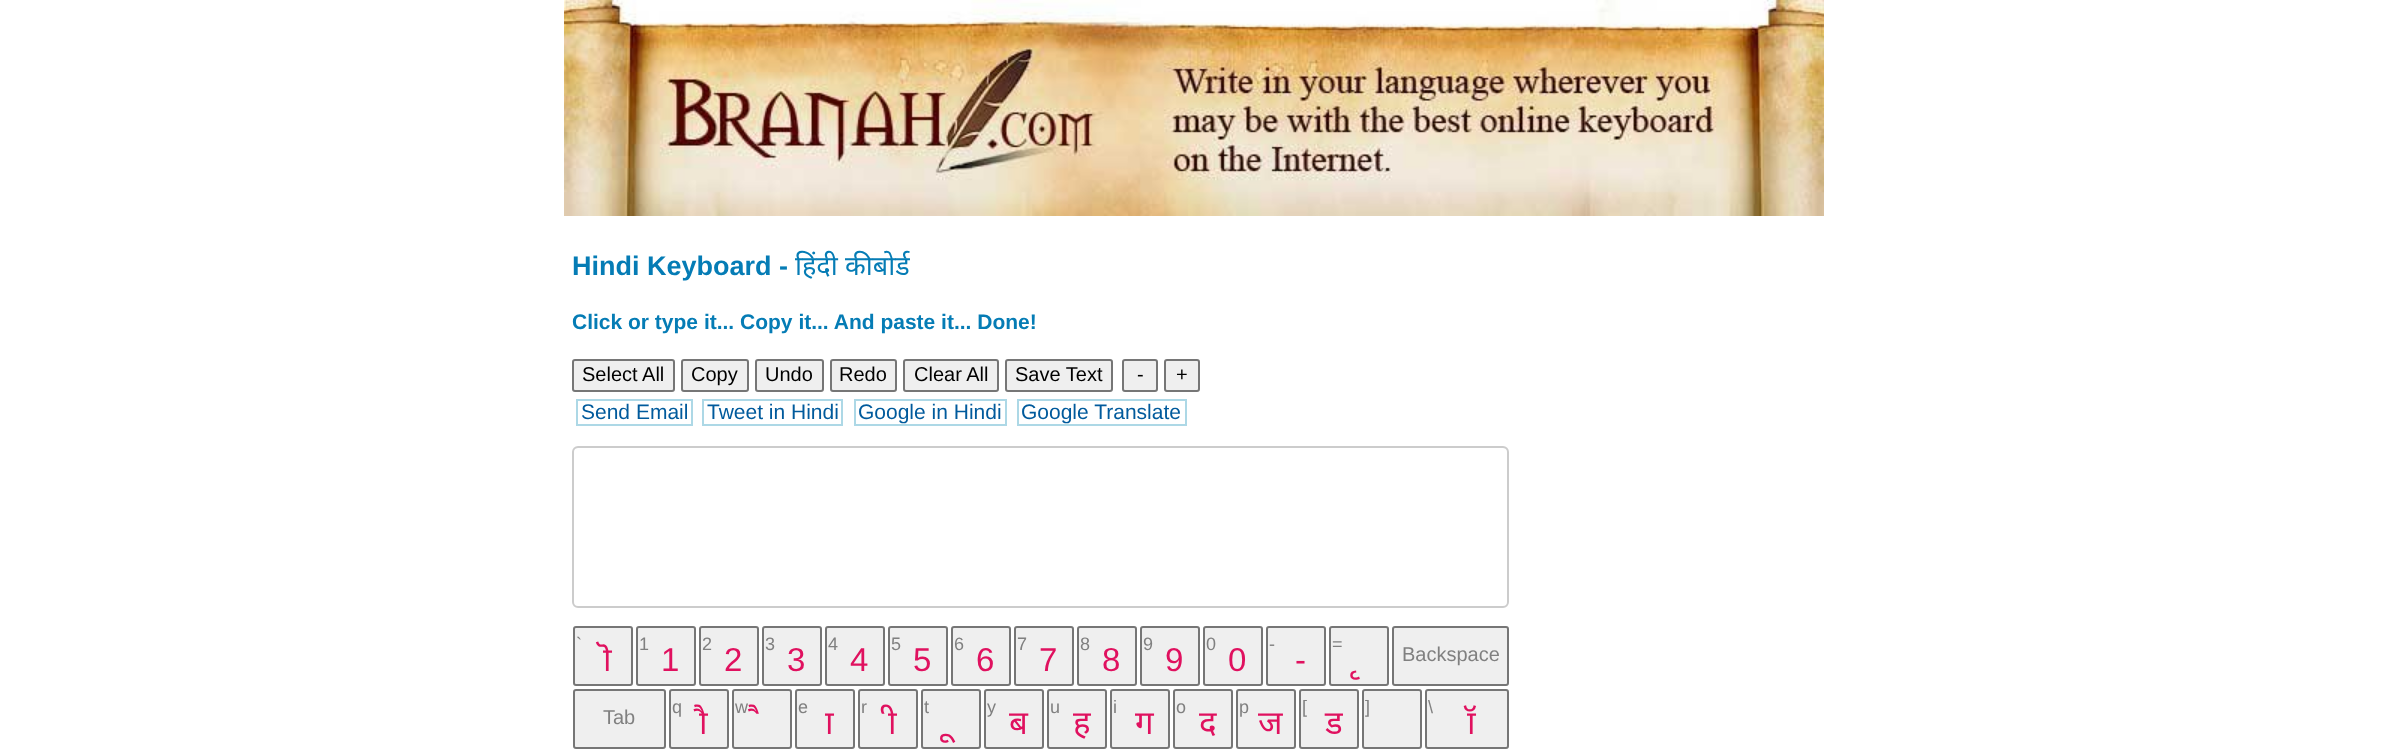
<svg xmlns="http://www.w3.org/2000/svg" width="2388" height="752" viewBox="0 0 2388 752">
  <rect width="100%" height="100%" fill="#ffffff"/>
  <image x="564" y="0" width="1260" height="216" href="img1.png"/>
  <text x="572" y="275" font-family="Liberation Sans" font-size="27" font-weight="bold" fill="#057cb5">Hindi Keyboard -</text>
  <text x="795" y="275" font-family="Noto Sans" font-size="27" fill="#057cb5">हिंदी</text>
  <text x="845" y="275" font-family="Noto Sans" font-size="27" fill="#057cb5">कीबोर्ड</text>
  <text x="572" y="329" font-family="Liberation Sans" font-size="21" font-weight="bold" fill="#057cb5">Click or type it... Copy it... And paste it... Done!</text>
  <rect x="573" y="360" width="101" height="31" rx="2" fill="#efefef" stroke="#767676" stroke-width="2"/>
  <text x="582" y="381" font-family="Liberation Sans" font-size="20" fill="#000000">Select All</text>
  <rect x="682" y="360" width="66" height="31" rx="2" fill="#efefef" stroke="#767676" stroke-width="2"/>
  <text x="691" y="381" font-family="Liberation Sans" font-size="20" fill="#000000">Copy</text>
  <rect x="756" y="360" width="67" height="31" rx="2" fill="#efefef" stroke="#767676" stroke-width="2"/>
  <text x="765" y="381" font-family="Liberation Sans" font-size="20" fill="#000000">Undo</text>
  <rect x="831" y="360" width="65" height="31" rx="2" fill="#efefef" stroke="#767676" stroke-width="2"/>
  <text x="839" y="381" font-family="Liberation Sans" font-size="20" fill="#000000">Redo</text>
  <rect x="904" y="360" width="94" height="31" rx="2" fill="#efefef" stroke="#767676" stroke-width="2"/>
  <text x="914" y="381" font-family="Liberation Sans" font-size="20" fill="#000000">Clear All</text>
  <rect x="1006" y="360" width="106" height="31" rx="2" fill="#efefef" stroke="#767676" stroke-width="2"/>
  <text x="1015" y="381" font-family="Liberation Sans" font-size="20" fill="#000000">Save Text</text>
  <rect x="1123" y="360" width="34" height="31" rx="2" fill="#efefef" stroke="#767676" stroke-width="2"/>
  <text x="1137" y="381" font-family="Liberation Sans" font-size="20" fill="#000000">-</text>
  <rect x="1165" y="360" width="34" height="31" rx="2" fill="#efefef" stroke="#767676" stroke-width="2"/>
  <text x="1176" y="381" font-family="Liberation Sans" font-size="20" fill="#000000">+</text>
  <rect x="577" y="400" width="115" height="25" fill="none" stroke="#add8e6" stroke-width="2"/>
  <text x="581" y="419" font-family="Liberation Sans" font-size="21" fill="#005a9c">Send Email</text>
  <rect x="703" y="400" width="139" height="25" fill="none" stroke="#add8e6" stroke-width="2"/>
  <text x="707" y="419" font-family="Liberation Sans" font-size="21" fill="#005a9c">Tweet in Hindi</text>
  <rect x="855" y="400" width="151" height="25" fill="none" stroke="#add8e6" stroke-width="2"/>
  <text x="858" y="419" font-family="Liberation Sans" font-size="21" fill="#005a9c">Google in Hindi</text>
  <rect x="1018" y="400" width="168" height="25" fill="none" stroke="#add8e6" stroke-width="2"/>
  <text x="1021" y="419" font-family="Liberation Sans" font-size="21" fill="#005a9c">Google Translate</text>
  <path d="M578 448H1503C1505 448 1508 451 1508 453C1508 450 1506 447 1503 447H578C575 447 573 450 573 453C573 451 575 448 578 448Z" fill="#ececec"/>
  <rect x="573" y="447" width="935" height="160" rx="5" fill="none" stroke="#cccccc" stroke-width="2"/>
  <rect x="574" y="627" width="58" height="58" rx="2" fill="#efefef" stroke="#767676" stroke-width="2"/>
  <text x="576" y="650" font-family="Liberation Sans" font-size="18" fill="#808080">`</text>
  <text x="603" y="671" font-family="Noto Sans" font-size="33" fill="#e0115f">ॊ</text>
  <rect x="637" y="627" width="58" height="58" rx="2" fill="#efefef" stroke="#767676" stroke-width="2"/>
  <text x="639" y="650" font-family="Liberation Sans" font-size="18" fill="#808080">1</text>
  <text x="661" y="671" font-family="Liberation Sans" font-size="33" fill="#e0115f">1</text>
  <rect x="700" y="627" width="58" height="58" rx="2" fill="#efefef" stroke="#767676" stroke-width="2"/>
  <text x="702" y="650" font-family="Liberation Sans" font-size="18" fill="#808080">2</text>
  <text x="724" y="671" font-family="Liberation Sans" font-size="33" fill="#e0115f">2</text>
  <rect x="763" y="627" width="58" height="58" rx="2" fill="#efefef" stroke="#767676" stroke-width="2"/>
  <text x="765" y="650" font-family="Liberation Sans" font-size="18" fill="#808080">3</text>
  <text x="787" y="671" font-family="Liberation Sans" font-size="33" fill="#e0115f">3</text>
  <rect x="826" y="627" width="58" height="58" rx="2" fill="#efefef" stroke="#767676" stroke-width="2"/>
  <text x="828" y="650" font-family="Liberation Sans" font-size="18" fill="#808080">4</text>
  <text x="850" y="671" font-family="Liberation Sans" font-size="33" fill="#e0115f">4</text>
  <rect x="889" y="627" width="58" height="58" rx="2" fill="#efefef" stroke="#767676" stroke-width="2"/>
  <text x="891" y="650" font-family="Liberation Sans" font-size="18" fill="#808080">5</text>
  <text x="913" y="671" font-family="Liberation Sans" font-size="33" fill="#e0115f">5</text>
  <rect x="952" y="627" width="58" height="58" rx="2" fill="#efefef" stroke="#767676" stroke-width="2"/>
  <text x="954" y="650" font-family="Liberation Sans" font-size="18" fill="#808080">6</text>
  <text x="976" y="671" font-family="Liberation Sans" font-size="33" fill="#e0115f">6</text>
  <rect x="1015" y="627" width="58" height="58" rx="2" fill="#efefef" stroke="#767676" stroke-width="2"/>
  <text x="1017" y="650" font-family="Liberation Sans" font-size="18" fill="#808080">7</text>
  <text x="1039" y="671" font-family="Liberation Sans" font-size="33" fill="#e0115f">7</text>
  <rect x="1078" y="627" width="58" height="58" rx="2" fill="#efefef" stroke="#767676" stroke-width="2"/>
  <text x="1080" y="650" font-family="Liberation Sans" font-size="18" fill="#808080">8</text>
  <text x="1102" y="671" font-family="Liberation Sans" font-size="33" fill="#e0115f">8</text>
  <rect x="1141" y="627" width="58" height="58" rx="2" fill="#efefef" stroke="#767676" stroke-width="2"/>
  <text x="1143" y="650" font-family="Liberation Sans" font-size="18" fill="#808080">9</text>
  <text x="1165" y="671" font-family="Liberation Sans" font-size="33" fill="#e0115f">9</text>
  <rect x="1204" y="627" width="58" height="58" rx="2" fill="#efefef" stroke="#767676" stroke-width="2"/>
  <text x="1206" y="650" font-family="Liberation Sans" font-size="18" fill="#808080">0</text>
  <text x="1228" y="671" font-family="Liberation Sans" font-size="33" fill="#e0115f">0</text>
  <rect x="1267" y="627" width="58" height="58" rx="2" fill="#efefef" stroke="#767676" stroke-width="2"/>
  <text x="1269" y="650" font-family="Liberation Sans" font-size="18" fill="#808080">-</text>
  <text x="1295" y="671" font-family="Liberation Sans" font-size="33" fill="#e0115f">-</text>
  <rect x="1330" y="627" width="58" height="58" rx="2" fill="#efefef" stroke="#767676" stroke-width="2"/>
  <text x="1332" y="650" font-family="Liberation Sans" font-size="18" fill="#808080">=</text>
  <text x="1359" y="671" font-family="Noto Sans" font-size="33" fill="#e0115f">ृ</text>
  <rect x="1393" y="627" width="115" height="58" rx="2" fill="#efefef" stroke="#767676" stroke-width="2"/>
  <text x="1402" y="661" font-family="Liberation Sans" font-size="20" fill="#808080">Backspace</text>
  <rect x="574" y="690" width="91" height="58" rx="2" fill="#efefef" stroke="#767676" stroke-width="2"/>
  <text x="603" y="724" font-family="Liberation Sans" font-size="20" fill="#808080">Tab</text>
  <rect x="670" y="690" width="58" height="58" rx="2" fill="#efefef" stroke="#767676" stroke-width="2"/>
  <text x="672" y="713" font-family="Liberation Sans" font-size="18" fill="#808080">q</text>
  <text x="699" y="734" font-family="Noto Sans" font-size="33" fill="#e0115f">ौ</text>
  <rect x="733" y="690" width="58" height="58" rx="2" fill="#efefef" stroke="#767676" stroke-width="2"/>
  <text x="735" y="713" font-family="Liberation Sans" font-size="18" fill="#808080">w</text>
  <text x="762" y="734" font-family="Noto Sans" font-size="33" fill="#e0115f">ै</text>
  <rect x="796" y="690" width="58" height="58" rx="2" fill="#efefef" stroke="#767676" stroke-width="2"/>
  <text x="798" y="713" font-family="Liberation Sans" font-size="18" fill="#808080">e</text>
  <text x="825" y="734" font-family="Noto Sans" font-size="33" fill="#e0115f">ा</text>
  <rect x="859" y="690" width="58" height="58" rx="2" fill="#efefef" stroke="#767676" stroke-width="2"/>
  <text x="861" y="713" font-family="Liberation Sans" font-size="18" fill="#808080">r</text>
  <text x="888" y="734" font-family="Noto Sans" font-size="33" fill="#e0115f">ी</text>
  <rect x="922" y="690" width="58" height="58" rx="2" fill="#efefef" stroke="#767676" stroke-width="2"/>
  <text x="924" y="713" font-family="Liberation Sans" font-size="18" fill="#808080">t</text>
  <text x="951" y="734" font-family="Noto Sans" font-size="33" fill="#e0115f">ू</text>
  <rect x="985" y="690" width="58" height="58" rx="2" fill="#efefef" stroke="#767676" stroke-width="2"/>
  <text x="987" y="713" font-family="Liberation Sans" font-size="18" fill="#808080">y</text>
  <text x="1009" y="734" font-family="Noto Sans" font-size="33" fill="#e0115f">ब</text>
  <rect x="1048" y="690" width="58" height="58" rx="2" fill="#efefef" stroke="#767676" stroke-width="2"/>
  <text x="1050" y="713" font-family="Liberation Sans" font-size="18" fill="#808080">u</text>
  <text x="1073" y="734" font-family="Noto Sans" font-size="33" fill="#e0115f">ह</text>
  <rect x="1111" y="690" width="58" height="58" rx="2" fill="#efefef" stroke="#767676" stroke-width="2"/>
  <text x="1113" y="713" font-family="Liberation Sans" font-size="18" fill="#808080">i</text>
  <text x="1135" y="734" font-family="Noto Sans" font-size="33" fill="#e0115f">ग</text>
  <rect x="1174" y="690" width="58" height="58" rx="2" fill="#efefef" stroke="#767676" stroke-width="2"/>
  <text x="1176" y="713" font-family="Liberation Sans" font-size="18" fill="#808080">o</text>
  <text x="1199" y="734" font-family="Noto Sans" font-size="33" fill="#e0115f">द</text>
  <rect x="1237" y="690" width="58" height="58" rx="2" fill="#efefef" stroke="#767676" stroke-width="2"/>
  <text x="1239" y="713" font-family="Liberation Sans" font-size="18" fill="#808080">p</text>
  <text x="1258" y="734" font-family="Noto Sans" font-size="33" fill="#e0115f">ज</text>
  <rect x="1300" y="690" width="58" height="58" rx="2" fill="#efefef" stroke="#767676" stroke-width="2"/>
  <text x="1302" y="713" font-family="Liberation Sans" font-size="18" fill="#808080">[</text>
  <text x="1325" y="734" font-family="Noto Sans" font-size="33" fill="#e0115f">ड</text>
  <rect x="1363" y="690" width="58" height="58" rx="2" fill="#efefef" stroke="#767676" stroke-width="2"/>
  <text x="1365" y="713" font-family="Liberation Sans" font-size="18" fill="#808080">]</text>
  <rect x="1426" y="690" width="82" height="58" rx="2" fill="#efefef" stroke="#767676" stroke-width="2"/>
  <text x="1428" y="713" font-family="Liberation Sans" font-size="18" fill="#808080">\</text>
  <text x="1467" y="734" font-family="Noto Sans" font-size="33" fill="#e0115f">ॉ</text>
</svg>
